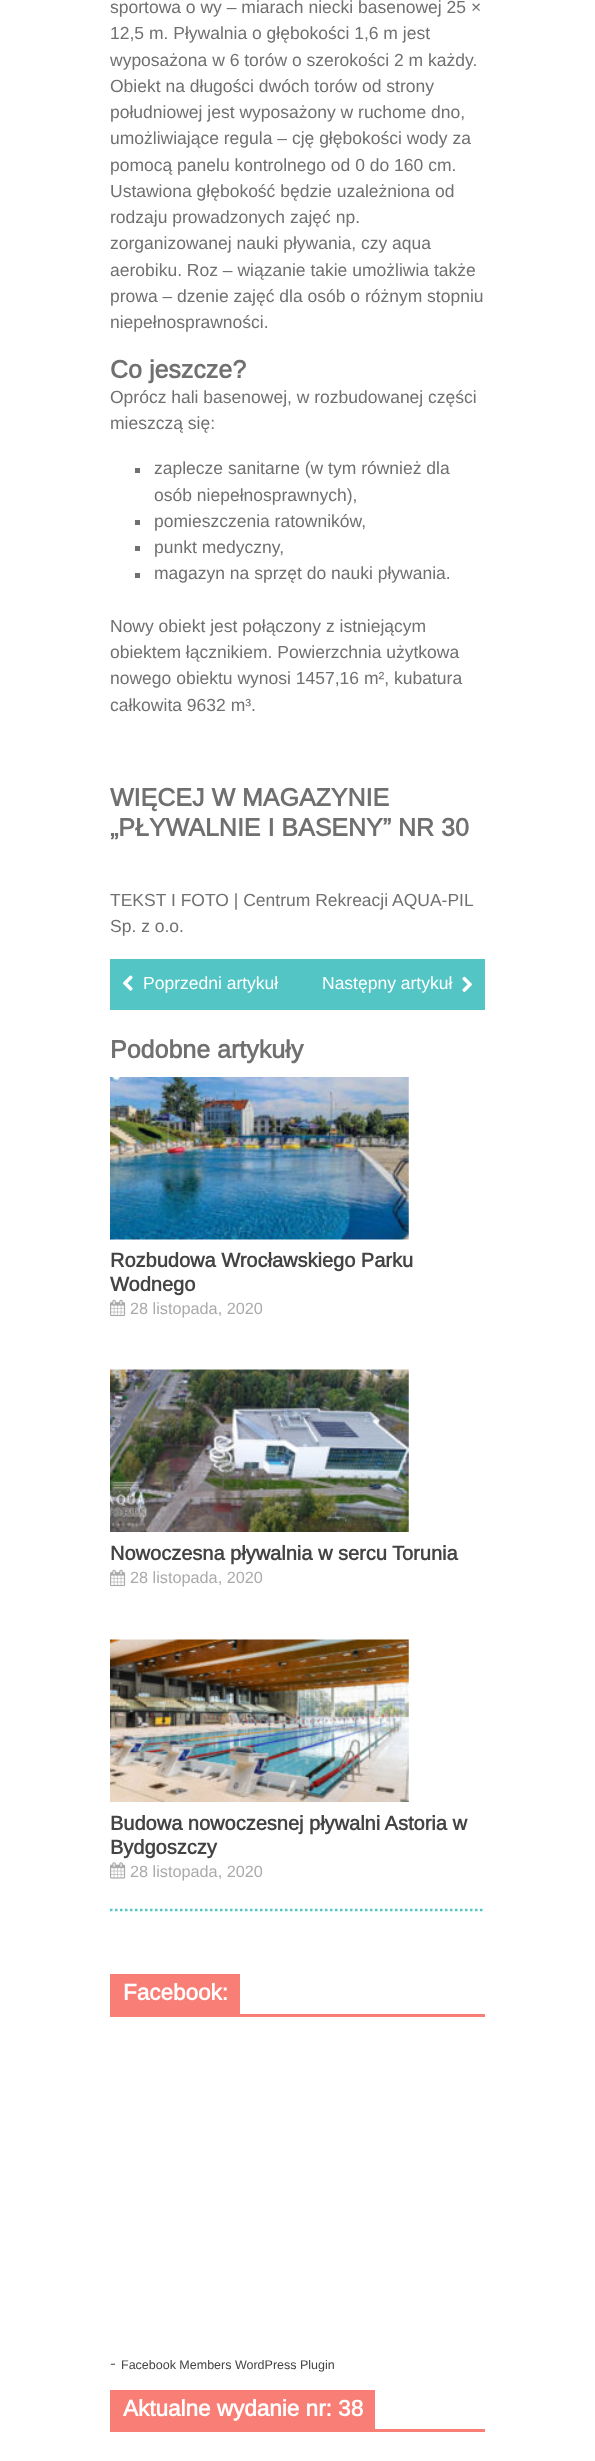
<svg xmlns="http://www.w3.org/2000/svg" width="595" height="2461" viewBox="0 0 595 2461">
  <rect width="100%" height="100%" fill="#ffffff"/>
  <path d="M110 1910H485" fill="none" stroke="#53c5c5" stroke-width="2.5" stroke-dasharray="2.5 2.5"/>
  <text x="110" y="13" font-family="Arimo" font-size="17.5" fill="#707070">sportowa o wy – miarach niecki basenowej 25 ×</text>
  <text x="110" y="39" font-family="Arimo" font-size="17.5" fill="#707070">12,5 m. Pływalnia o głębokości 1,6 m jest</text>
  <text x="110" y="66" font-family="Arimo" font-size="17.5" fill="#707070">wyposażona w 6 torów o szerokości 2 m każdy.</text>
  <text x="110" y="92" font-family="Arimo" font-size="17.5" fill="#707070">Obiekt na długości dwóch torów od strony</text>
  <text x="110" y="118" font-family="Arimo" font-size="17.5" fill="#707070">południowej jest wyposażony w ruchome dno,</text>
  <text x="110" y="144" font-family="Arimo" font-size="17.5" fill="#707070">umożliwiające regula – cję głębokości wody za</text>
  <text x="110" y="171" font-family="Arimo" font-size="17.5" fill="#707070">pomocą panelu kontrolnego od 0 do 160 cm.</text>
  <text x="110" y="197" font-family="Arimo" font-size="17.5" fill="#707070">Ustawiona głębokość będzie uzależniona od</text>
  <text x="110" y="223" font-family="Arimo" font-size="17.5" fill="#707070">rodzaju prowadzonych zajęć np.</text>
  <text x="110" y="249" font-family="Arimo" font-size="17.5" fill="#707070">zorganizowanej nauki pływania, czy aqua</text>
  <text x="110" y="276" font-family="Arimo" font-size="17.5" fill="#707070">aerobiku. Roz – wiązanie takie umożliwia także</text>
  <text x="110" y="302" font-family="Arimo" font-size="17.5" fill="#707070">prowa – dzenie zajęć dla osób o różnym stopniu</text>
  <text x="110" y="328" font-family="Arimo" font-size="17.5" fill="#707070">niepełnosprawności.</text>
  <text x="110" y="378" font-family="Arimo" font-size="25" font-weight="bold" fill="#707070">Co jeszcze?</text>
  <text x="110" y="403" font-family="Arimo" font-size="17.5" fill="#707070">Oprócz hali basenowej, w rozbudowanej części</text>
  <text x="110" y="429" font-family="Arimo" font-size="17.5" fill="#707070">mieszczą się:</text>
  <rect x="135" y="468" width="5" height="5" fill="#707070"/>
  <text x="154" y="474" font-family="Arimo" font-size="17.5" fill="#707070">zaplecze sanitarne (w tym również dla</text>
  <text x="154" y="501" font-family="Arimo" font-size="17.5" fill="#707070">osób niepełnosprawnych),</text>
  <rect x="135" y="520" width="5" height="5" fill="#707070"/>
  <text x="154" y="527" font-family="Arimo" font-size="17.5" fill="#707070">pomieszczenia ratowników,</text>
  <rect x="135" y="546" width="5" height="5" fill="#707070"/>
  <text x="154" y="553" font-family="Arimo" font-size="17.5" fill="#707070">punkt medyczny,</text>
  <rect x="135" y="573" width="5" height="5" fill="#707070"/>
  <text x="154" y="579" font-family="Arimo" font-size="17.5" fill="#707070">magazyn na sprzęt do nauki pływania.</text>
  <text x="110" y="632" font-family="Arimo" font-size="17.5" fill="#707070">Nowy obiekt jest połączony z istniejącym</text>
  <text x="110" y="658" font-family="Arimo" font-size="17.5" fill="#707070">obiektem łącznikiem. Powierzchnia użytkowa</text>
  <text x="110" y="684" font-family="Arimo" font-size="17.5" fill="#707070">nowego obiektu wynosi 1457,16 m², kubatura</text>
  <text x="110" y="711" font-family="Arimo" font-size="17.5" fill="#707070">całkowita 9632 m³.</text>
  <text x="110" y="806" font-family="Arimo" font-size="25" font-weight="bold" fill="#707070">WIĘCEJ W MAGAZYNIE</text>
  <text x="110" y="836" font-family="Arimo" font-size="25" font-weight="bold" fill="#707070">„PŁYWALNIE I BASENY” NR 30</text>
  <text x="110" y="906" font-family="Arimo" font-size="17.5" fill="#707070">TEKST I FOTO | Centrum Rekreacji AQUA-PIL</text>
  <text x="110" y="932" font-family="Arimo" font-size="17.5" fill="#707070">Sp. z o.o.</text>
  <rect x="110" y="959" width="375" height="51" fill="#53c5c5"/>
  <image x="123" y="975" width="10" height="16" href="img1.png"/>
  <text x="143" y="989" font-family="Arimo" font-size="17.5" fill="#ffffff">Poprzedni artykuł</text>
  <text x="322" y="989" font-family="Arimo" font-size="17.5" fill="#ffffff">Następny artykuł</text>
  <image x="462" y="976" width="10" height="16" href="img2.png"/>
  <text x="110" y="1058" font-family="Arimo" font-size="25" font-weight="bold" fill="#707070">Podobne artykuły</text>
  <image x="110" y="1077" width="299" height="163" href="img3.png"/>
  <text x="110" y="1267" font-family="Arimo" font-size="20" font-weight="bold" fill="#444444">Rozbudowa Wrocławskiego Parku</text>
  <text x="110" y="1291" font-family="Arimo" font-size="20" font-weight="bold" fill="#444444">Wodnego</text>
  <image x="110" y="1299" width="16" height="18" href="img4.png"/>
  <text x="130" y="1314" font-family="Arimo" font-size="16.25" fill="#aaaaaa">28 listopada, 2020</text>
  <image x="110" y="1369" width="299" height="163" href="img5.png"/>
  <text x="110" y="1560" font-family="Arimo" font-size="20" font-weight="bold" fill="#444444">Nowoczesna pływalnia w sercu Torunia</text>
  <image x="110" y="1569" width="16" height="18" href="img4.png"/>
  <text x="130" y="1583" font-family="Arimo" font-size="16.25" fill="#aaaaaa">28 listopada, 2020</text>
  <image x="110" y="1639" width="299" height="163" href="img6.png"/>
  <text x="110" y="1830" font-family="Arimo" font-size="20" font-weight="bold" fill="#444444">Budowa nowoczesnej pływalni Astoria w</text>
  <text x="110" y="1854" font-family="Arimo" font-size="20" font-weight="bold" fill="#444444">Bydgoszczy</text>
  <image x="110" y="1862" width="16" height="17" href="img7.png"/>
  <text x="130" y="1877" font-family="Arimo" font-size="16.25" fill="#aaaaaa">28 listopada, 2020</text>
  <rect x="110" y="2014" width="375" height="3" fill="#f97e76"/>
  <rect x="110" y="1974" width="130" height="40" fill="#f97e76"/>
  <text x="123" y="2000" font-family="Arimo" font-size="22.5" font-weight="bold" fill="#ffffff">Facebook:</text>
  <text x="110" y="2369" font-family="Arimo" font-size="17.5" fill="#707070">-</text>
  <text x="121" y="2369" font-family="Arimo" font-size="12.5" fill="#444444">Facebook Members WordPress Plugin</text>
  <rect x="110" y="2429" width="375" height="3" fill="#f97e76"/>
  <rect x="110" y="2390" width="265" height="39" fill="#f97e76"/>
  <text x="123" y="2416" font-family="Arimo" font-size="22.5" font-weight="bold" fill="#ffffff">Aktualne wydanie nr: 38</text>
</svg>
